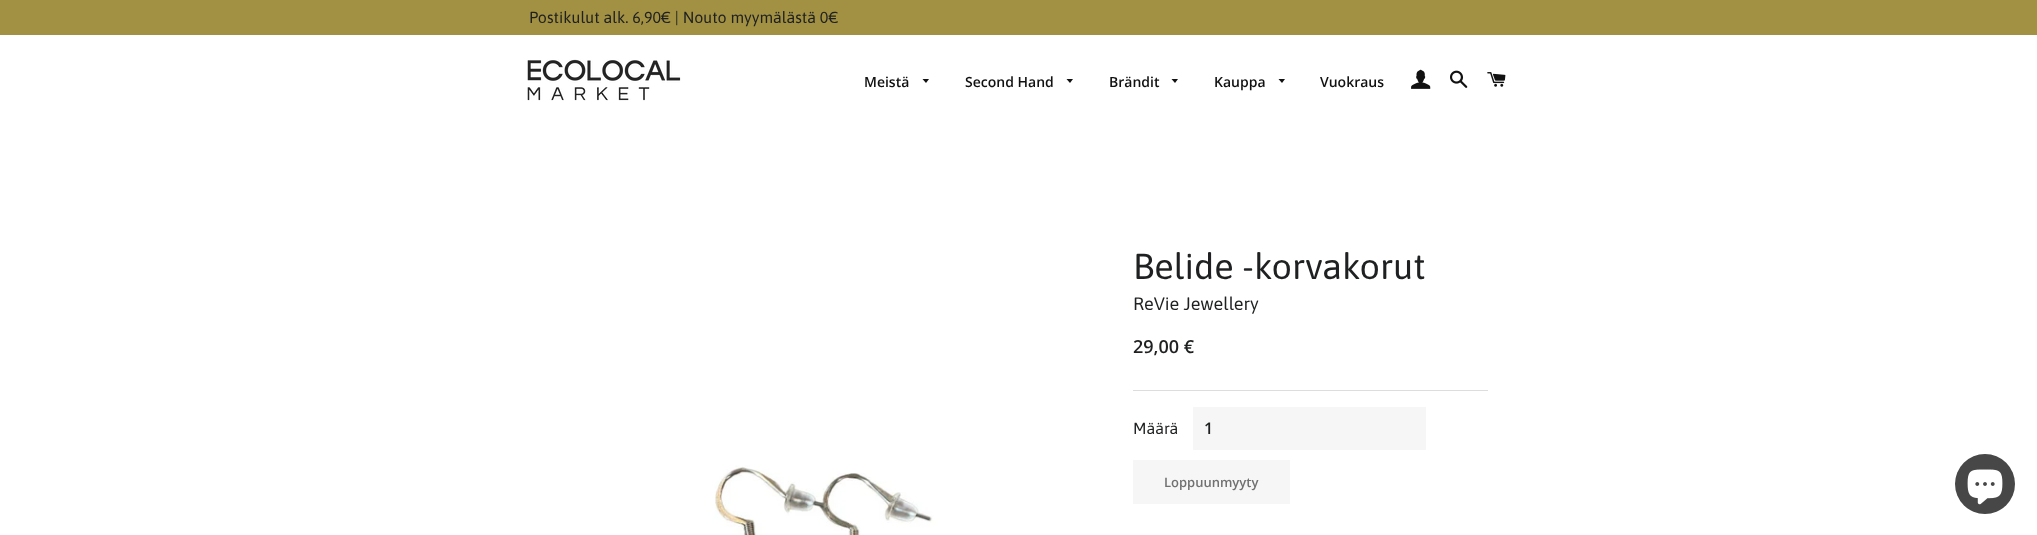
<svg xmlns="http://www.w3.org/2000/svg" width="2037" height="535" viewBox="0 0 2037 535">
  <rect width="100%" height="100%" fill="#ffffff"/>
  <rect x="0" y="0" width="2037" height="35" fill="#a29142"/>
  <text x="529" y="23" font-family="Asap" font-size="16" fill="#1f2021">Postikulut alk. 6,90€ | Nouto myymälästä 0€</text>
  <image x="527" y="59" width="154" height="42" href="img1.png"/>
  <text x="864" y="87" font-family="Open Sans" font-size="14" font-weight="600" fill="#111111">Meistä</text>
  <path d="M922.5 79L926 83L929 79Z" fill="#111111"/>
  <text x="965" y="87" font-family="Open Sans" font-size="14" font-weight="600" fill="#111111">Second Hand</text>
  <path d="M1066.5 79L1070 83L1073 79Z" fill="#111111"/>
  <text x="1109" y="87" font-family="Open Sans" font-size="14" font-weight="600" fill="#111111">Brändit</text>
  <path d="M1171.5 79L1175 83L1178 79Z" fill="#111111"/>
  <text x="1214" y="87" font-family="Open Sans" font-size="14" font-weight="600" fill="#111111">Kauppa</text>
  <path d="M1278.5 79L1282 83L1285 79Z" fill="#111111"/>
  <text x="1320" y="87" font-family="Open Sans" font-size="14" font-weight="600" fill="#111111">Vuokraus</text>
  <image x="1411" y="69" width="20" height="20" href="img2.png"/>
  <image x="1450" y="70" width="18" height="18" href="img3.png"/>
  <image x="1487" y="72" width="19" height="15" href="img4.png"/>
  <image x="524" y="205" width="564" height="330" href="img5.png"/>
  <text x="1133" y="279" font-family="Asap" font-size="36" fill="#1f2021">Belide -korvakorut</text>
  <text x="1133" y="310" font-family="Asap" font-size="18" fill="#1f2021">ReVie Jewellery</text>
  <text x="1133" y="353" font-family="Open Sans" font-size="18" font-weight="600" fill="#1f2021">29,00 €</text>
  <rect x="1133" y="390" width="355" height="1" fill="#dddddd"/>
  <text x="1133" y="434" font-family="Asap" font-size="16" fill="#1f2021">Määrä</text>
  <rect x="1193" y="407" width="233" height="43" fill="#f6f6f6"/>
  <text x="1204" y="434" font-family="Open Sans" font-size="16" font-weight="600" fill="#1f2021">1</text>
  <rect x="1133" y="460" width="157" height="44" fill="#f6f6f6"/>
  <text x="1164" y="487" font-family="Open Sans" font-size="13" font-weight="600" fill="#717171">Loppuunmyyty</text>
  <circle cx="1985" cy="484" r="30" fill="#474747"/>
  <image x="1967" y="469" width="36" height="36" href="img6.png"/>
</svg>
